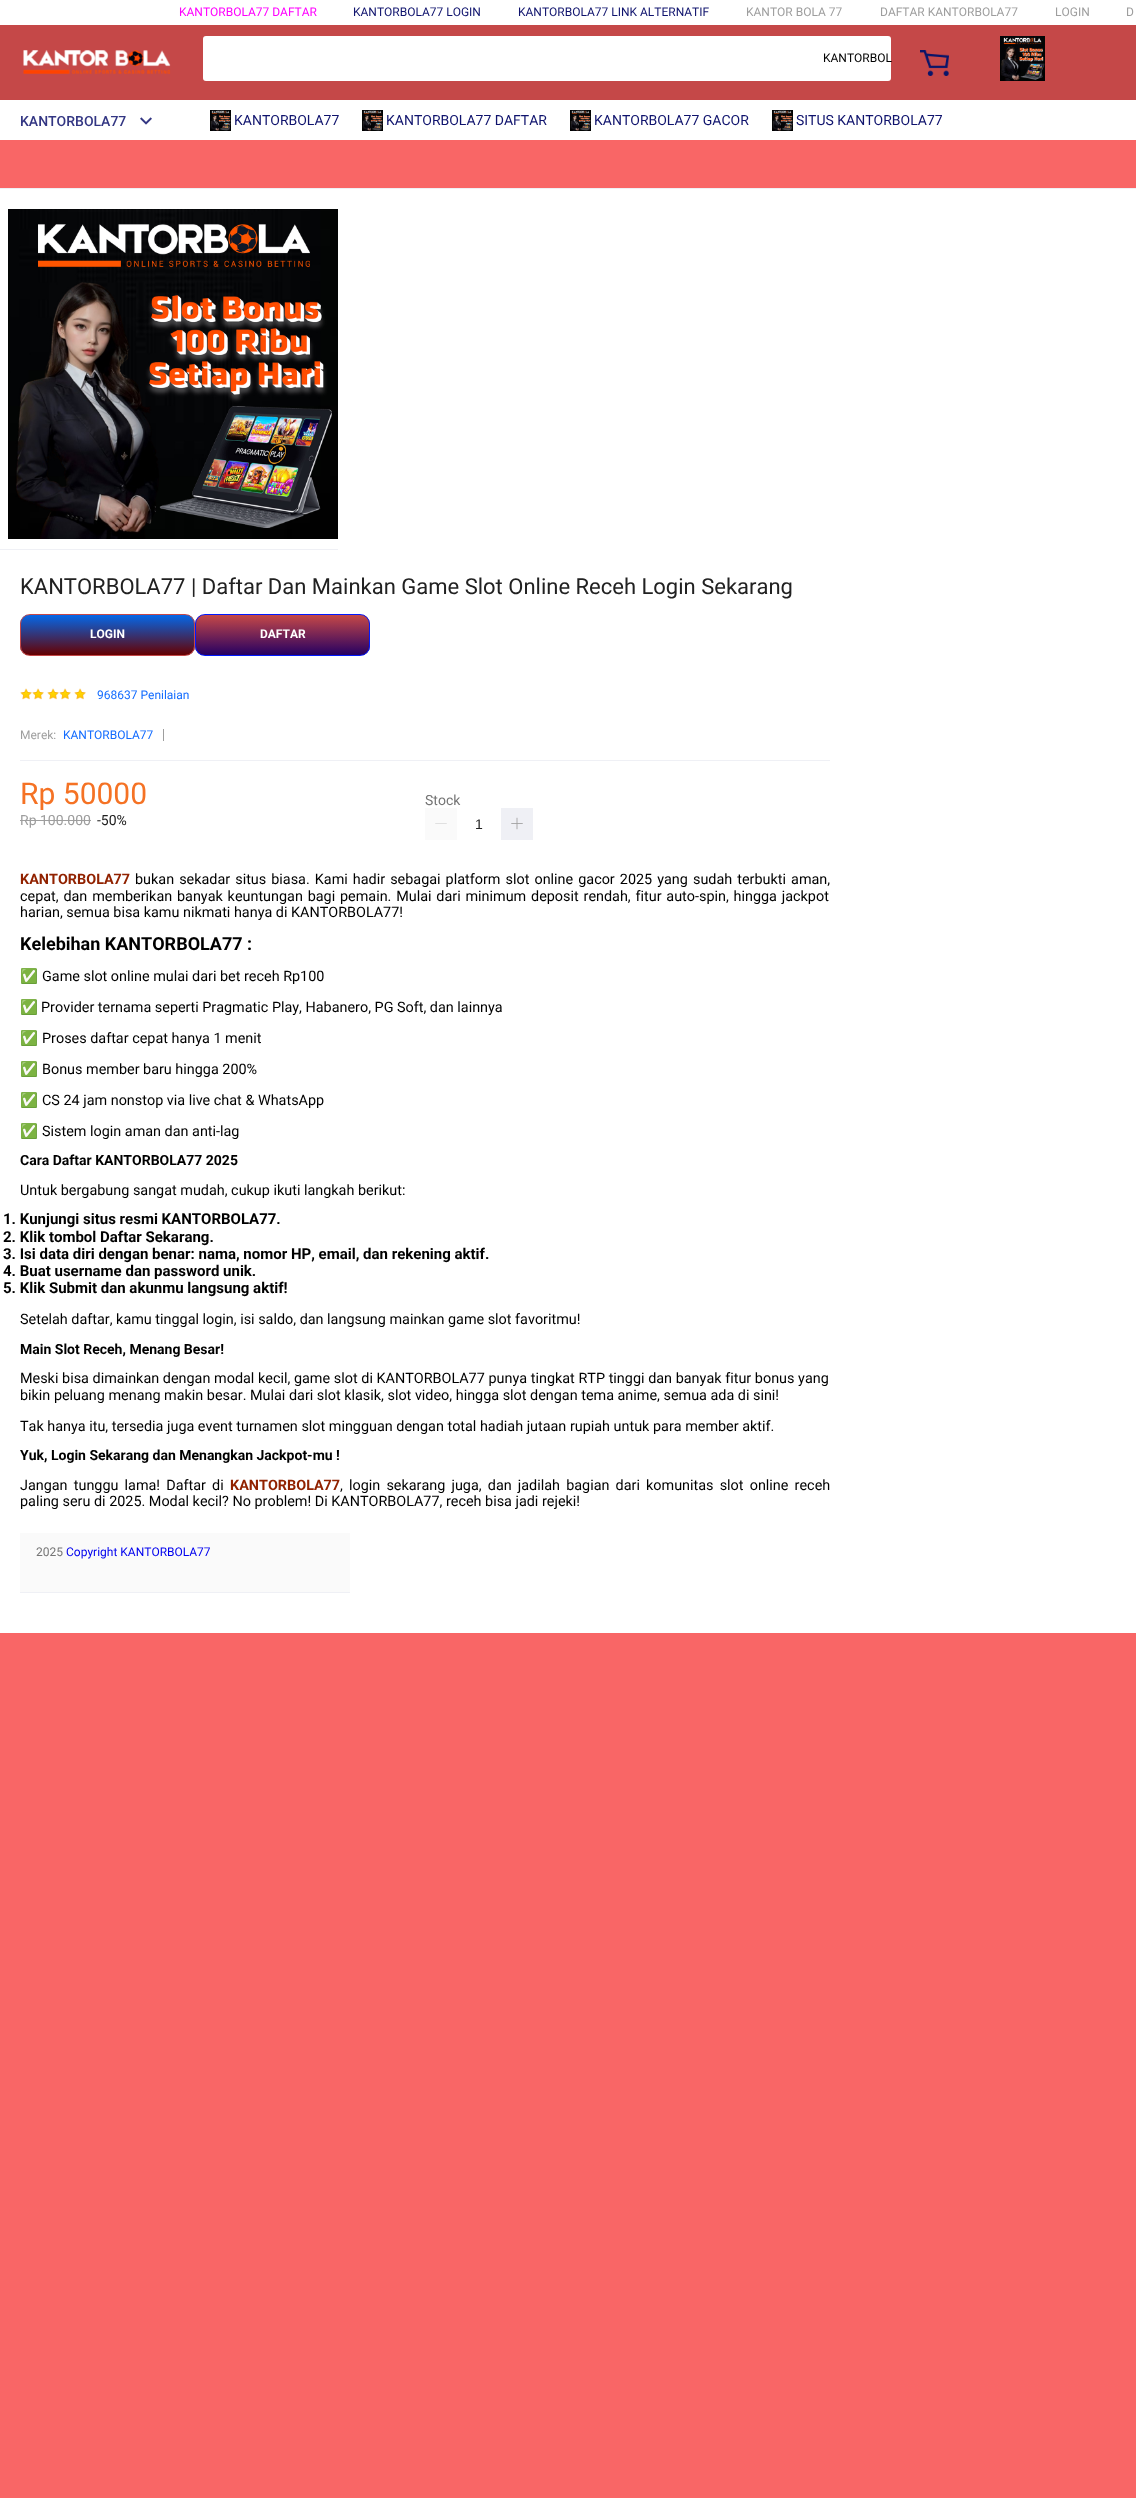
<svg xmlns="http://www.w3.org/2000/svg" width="1136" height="2498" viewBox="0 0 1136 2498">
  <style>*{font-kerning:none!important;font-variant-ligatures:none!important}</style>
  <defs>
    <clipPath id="clip1"><rect x="20" y="614" width="175" height="42" rx="10"/></clipPath>
    <linearGradient id="g1" gradientUnits="userSpaceOnUse" x1="108" y1="615" x2="108" y2="655"><stop offset="0" stop-color="#0567e7"/><stop offset="1" stop-color="#660000"/></linearGradient>
    <clipPath id="clip2"><rect x="195" y="614" width="175" height="42" rx="10"/></clipPath>
    <linearGradient id="g2" gradientUnits="userSpaceOnUse" x1="283" y1="615" x2="283" y2="655"><stop offset="0" stop-color="#c54848"/><stop offset="1" stop-color="#260062"/></linearGradient>
  </defs>
  <rect width="100%" height="100%" fill="#f96666"/>
  <rect x="0" y="0" width="1136" height="140" fill="#ffffff"/>
  <text x="179" y="16" font-family="Roboto" font-size="12" fill="#ff00ff">KANTORBOLA77 DAFTAR</text>
  <text x="353" y="16" font-family="Roboto" font-size="12" fill="#0f136d">KANTORBOLA77 LOGIN</text>
  <text x="518" y="16" font-family="Roboto" font-size="12" fill="#0f136d">KANTORBOLA77 LINK ALTERNATIF</text>
  <text x="746" y="16" font-family="Roboto" font-size="12" fill="#9e9e9e">KANTOR BOLA 77</text>
  <text x="880" y="16" font-family="Roboto" font-size="12" fill="#9e9e9e">DAFTAR KANTORBOLA77</text>
  <text x="1055" y="16" font-family="Roboto" font-size="12" fill="#9e9e9e">LOGIN</text>
  <text x="1126" y="16" font-family="Roboto" font-size="12" fill="#9e9e9e">D</text>
  <rect x="0" y="25" width="1136" height="75" fill="#c54848"/>
  <image x="23" y="50" width="148" height="24" href="img1.png"/>
  <rect x="203" y="36" width="688" height="45" rx="3" fill="#ffffff"/>
  <text x="823" y="62" font-family="Roboto" font-size="12" fill="#000000">KANTORBOL</text>
  <image x="920" y="50" width="29" height="26" href="img2.png"/>
  <image x="1000" y="36" width="45" height="45" href="img3.png"/>
  <text x="20" y="126" font-family="Roboto" font-size="14" font-weight="500" fill="#333683">KANTORBOLA77</text>
  <image x="140" y="117" width="12" height="8" href="img4.png"/>
  <image x="210" y="110" width="21" height="21" href="img5.png"/>
  <text x="234" y="125" font-family="Roboto" font-size="14" fill="#0f136d">KANTORBOLA77</text>
  <image x="362" y="110" width="21" height="21" href="img6.png"/>
  <text x="386" y="125" font-family="Roboto" font-size="14" fill="#0f136d">KANTORBOLA77 DAFTAR</text>
  <image x="570" y="110" width="21" height="21" href="img5.png"/>
  <text x="594" y="125" font-family="Roboto" font-size="14" fill="#0f136d">KANTORBOLA77 GACOR</text>
  <image x="772" y="110" width="21" height="21" href="img6.png"/>
  <text x="796" y="125" font-family="Roboto" font-size="14" fill="#0f136d">SITUS KANTORBOLA77</text>
  <rect x="0" y="188" width="1136" height="1" fill="#eff0f5"/>
  <rect x="0" y="189" width="1136" height="1444" fill="#ffffff"/>
  <rect x="0" y="549" width="338" height="1" fill="#eff0f5"/>
  <image x="8" y="209" width="330" height="330" href="img7.png"/>
  <text x="20" y="594" font-family="Roboto" font-size="22" fill="#212121">KANTORBOLA77 | Daftar Dan Mainkan Game Slot Online Receh Login Sekarang</text>
  <g clip-path="url(#clip1)">
    <rect x="20" y="615" width="175" height="40" fill="url(#g1)"/>
  </g>
  <rect x="20.5" y="614.5" width="174" height="41" rx="9.5" fill="none" stroke="#c54848"/>
  <text x="90" y="638" font-family="Roboto" font-size="12" font-weight="bold" fill="#ffffff">LOGIN</text>
  <g clip-path="url(#clip2)">
    <rect x="195" y="615" width="175" height="40" fill="url(#g2)"/>
  </g>
  <rect x="195.5" y="614.5" width="174" height="41" rx="9.5" fill="none" stroke="#001aff"/>
  <text x="260" y="638" font-family="Roboto" font-size="12" font-weight="bold" fill="#ffffff">DAFTAR</text>
  <image x="20" y="688" width="12" height="12" href="img8.png"/>
  <image x="32" y="688" width="12" height="12" href="img8.png"/>
  <image x="47" y="688" width="12" height="12" href="img8.png"/>
  <image x="59" y="688" width="12" height="12" href="img8.png"/>
  <image x="74" y="688" width="12" height="12" href="img8.png"/>
  <text x="97" y="699" font-family="Roboto" font-size="12" fill="#136cff">968637 Penilaian</text>
  <rect x="20" y="760" width="810" height="1" fill="#eff0f5"/>
  <text x="20" y="739" font-family="Roboto" font-size="12" fill="#9e9e9e">Merek:</text>
  <text x="63" y="739" font-family="Roboto" font-size="12" fill="#136cff">KANTORBOLA77</text>
  <rect x="163" y="729" width="1" height="12" fill="#9e9e9e"/>
  <text x="20" y="804" font-family="Roboto" font-size="30" fill="#f57224">Rp 50000</text>
  <text x="20" y="825" font-family="Roboto" font-size="14" fill="#9e9e9e">Rp 100.000</text>
  <rect x="20" y="820" width="71" height="1" fill="#9e9e9e"/>
  <text x="97" y="825" font-family="Roboto" font-size="14" fill="#212121">-50%</text>
  <text x="425" y="805" font-family="Roboto" font-size="14" fill="#757575">Stock</text>
  <rect x="425" y="808" width="32" height="32" fill="#fafafa"/>
  <image x="435" y="823" width="12" height="1" href="img9.png"/>
  <rect x="501" y="808" width="32" height="32" fill="#eff0f5"/>
  <image x="511" y="817" width="12" height="13" href="img10.png"/>
  <text x="475" y="829" font-family="Liberation Sans" font-size="14" fill="#212121">1</text>
  <text x="20" y="884" font-family="Roboto" font-size="14.4" font-weight="bold" fill="#912200">KANTORBOLA77</text>
  <text x="135" y="884" word-spacing="1.5" font-family="Roboto" font-size="14.4" fill="#000000">bukan sekadar situs biasa. Kami hadir sebagai platform slot online gacor 2025 yang sudah terbukti aman,</text>
  <text x="20" y="901" word-spacing="1.25" font-family="Roboto" font-size="14.4" fill="#000000">cepat, dan memberikan banyak keuntungan bagi pemain. Mulai dari minimum deposit rendah, fitur auto-spin, hingga jackpot</text>
  <text x="20" y="917" font-family="Roboto" font-size="14.4" fill="#000000">harian, semua bisa kamu nikmati hanya di KANTORBOLA77!</text>
  <text x="20" y="950" font-family="Roboto" font-size="18" font-weight="bold" fill="#000000">Kelebihan KANTORBOLA77 :</text>
  <text x="20" y="981" font-family="Noto Color Emoji" font-size="14.4" fill="#000000">✅</text>
  <text x="42" y="981" font-family="Roboto" font-size="14.4" fill="#000000">Game slot online mulai dari bet receh Rp100</text>
  <text x="20" y="1012" font-family="Noto Color Emoji" font-size="14.4" fill="#000000">✅</text>
  <text x="41" y="1012" font-family="Roboto" font-size="14.4" fill="#000000">Provider ternama seperti Pragmatic Play, Habanero, PG Soft, dan lainnya</text>
  <text x="20" y="1043" font-family="Noto Color Emoji" font-size="14.4" fill="#000000">✅</text>
  <text x="42" y="1043" font-family="Roboto" font-size="14.4" fill="#000000">Proses daftar cepat hanya 1 menit</text>
  <text x="20" y="1074" font-family="Noto Color Emoji" font-size="14.4" fill="#000000">✅</text>
  <text x="42" y="1074" font-family="Roboto" font-size="14.4" fill="#000000">Bonus member baru hingga 200%</text>
  <text x="20" y="1105" font-family="Noto Color Emoji" font-size="14.4" fill="#000000">✅</text>
  <text x="42" y="1105" font-family="Roboto" font-size="14.4" fill="#000000">CS 24 jam nonstop via live chat &amp; WhatsApp</text>
  <text x="20" y="1136" font-family="Noto Color Emoji" font-size="14.4" fill="#000000">✅</text>
  <text x="42" y="1136" font-family="Roboto" font-size="14.4" fill="#000000">Sistem login aman dan anti-lag</text>
  <text x="20" y="1165" font-family="Roboto" font-size="14" font-weight="bold" fill="#000000">Cara Daftar KANTORBOLA77 2025</text>
  <text x="20" y="1195" font-family="Roboto" font-size="14.4" fill="#000000">Untuk bergabung sangat mudah, cukup ikuti langkah berikut:</text>
  <text x="3" y="1224" font-family="Roboto" font-size="15" font-weight="bold" fill="#000000">1. Kunjungi situs resmi KANTORBOLA77.</text>
  <text x="3" y="1242" font-family="Roboto" font-size="15" font-weight="bold" fill="#000000">2. Klik tombol Daftar Sekarang.</text>
  <text x="3" y="1259" font-family="Roboto" font-size="15" font-weight="bold" fill="#000000">3. Isi data diri dengan benar: nama, nomor HP, email, dan rekening aktif.</text>
  <text x="3" y="1276" font-family="Roboto" font-size="15" font-weight="bold" fill="#000000">4. Buat username dan password unik.</text>
  <text x="3" y="1293" font-family="Roboto" font-size="15" font-weight="bold" fill="#000000">5. Klik Submit dan akunmu langsung aktif!</text>
  <text x="20" y="1324" font-family="Roboto" font-size="14.4" fill="#000000">Setelah daftar, kamu tinggal login, isi saldo, dan langsung mainkan game slot favoritmu!</text>
  <text x="20" y="1354" font-family="Roboto" font-size="14" font-weight="bold" fill="#000000">Main Slot Receh, Menang Besar!</text>
  <text x="20" y="1383" word-spacing="0.1" font-family="Roboto" font-size="14.4" fill="#000000">Meski bisa dimainkan dengan modal kecil, game slot di KANTORBOLA77 punya tingkat RTP tinggi dan banyak fitur bonus yang</text>
  <text x="20" y="1400" font-family="Roboto" font-size="14.4" fill="#000000">bikin peluang menang makin besar. Mulai dari slot klasik, slot video, hingga slot dengan tema anime, semua ada di sini!</text>
  <text x="20" y="1431" font-family="Roboto" font-size="14.4" fill="#000000">Tak hanya itu, tersedia juga event turnamen slot mingguan dengan total hadiah jutaan rupiah untuk para member aktif.</text>
  <text x="20" y="1460" font-family="Roboto" font-size="14" font-weight="bold" fill="#000000">Yuk, Login Sekarang dan Menangkan Jackpot-mu !</text>
  <text x="20" y="1490" word-spacing="2.6" font-family="Roboto" font-size="14.4" fill="#000000">Jangan tunggu lama! Daftar di</text>
  <text x="230" y="1490" font-family="Roboto" font-size="14.4" font-weight="bold" fill="#912200">KANTORBOLA77</text>
  <text x="340" y="1490" word-spacing="2.6" font-family="Roboto" font-size="14.4" fill="#000000">, login sekarang juga, dan jadilah bagian dari komunitas slot online receh</text>
  <text x="20" y="1506" font-family="Roboto" font-size="14.4" fill="#000000">paling seru di 2025. Modal kecil? No problem! Di KANTORBOLA77, receh bisa jadi rejeki!</text>
  <rect x="20" y="1533" width="330" height="59" fill="#fafafa"/>
  <text x="36" y="1556" font-family="Roboto" font-size="12" fill="#757575">2025</text>
  <text x="66" y="1556" font-family="Roboto" font-size="12" fill="#0000ee">Copyright KANTORBOLA77</text>
  <rect x="20" y="1592" width="330" height="1" fill="#eff0f5"/>
</svg>
